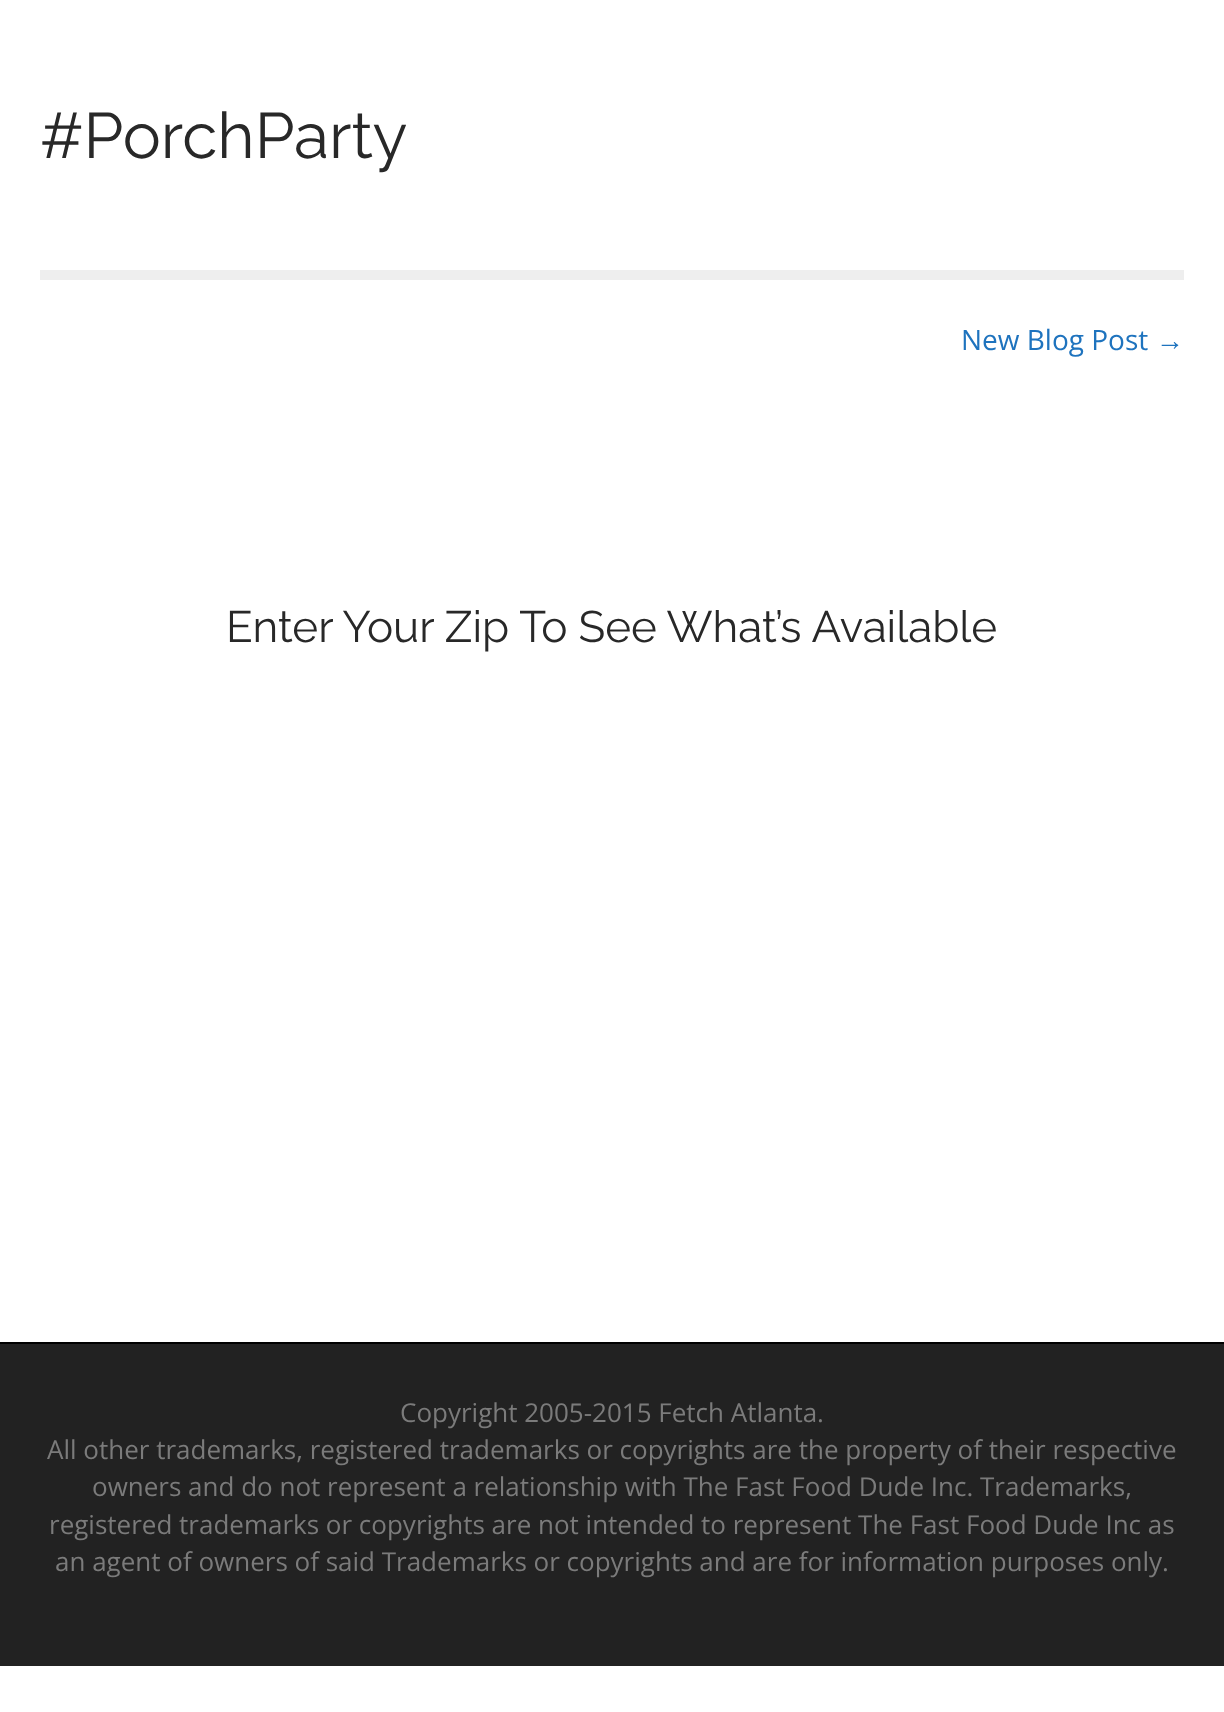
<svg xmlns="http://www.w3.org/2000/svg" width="1224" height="1712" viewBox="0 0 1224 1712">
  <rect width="100%" height="100%" fill="#ffffff"/>
  <rect x="40" y="270" width="1144" height="10" fill="#eeeeee"/>
  <text x="40" y="158" font-family="Raleway" font-size="64" font-weight="100" fill="#282828">#PorchParty</text>
  <text x="961" y="350" font-family="Open Sans" font-size="28" fill="#1e73be">New Blog Post</text>
  <text x="1156" y="350" font-family="Liberation Sans" font-size="28" fill="#1e73be">→</text>
  <text x="226" y="642" font-family="Raleway" font-size="44" font-weight="100" fill="#282828">Enter Your Zip To See What’s Available</text>
  <rect x="0" y="1344" width="1224" height="322" fill="#222222"/>
  <rect x="0" y="1342" width="1224" height="2" fill="#000000"/>
  <text x="400" y="1422" font-family="Open Sans" font-size="26" fill="#7b7b7b">Copyright 2005-2015 Fetch Atlanta.</text>
  <text x="47" y="1459" font-family="Open Sans" font-size="26" fill="#7b7b7b">All other trademarks, registered trademarks or copyrights are the property of their respective</text>
  <text x="92" y="1496" font-family="Open Sans" font-size="26" fill="#7b7b7b">owners and do not represent a relationship with The Fast Food Dude Inc. Trademarks,</text>
  <text x="49" y="1534" font-family="Open Sans" font-size="26" fill="#7b7b7b">registered trademarks or copyrights are not intended to represent The Fast Food Dude Inc as</text>
  <text x="55" y="1571" font-family="Open Sans" font-size="26" fill="#7b7b7b">an agent of owners of said Trademarks or copyrights and are for information purposes only.</text>
</svg>
